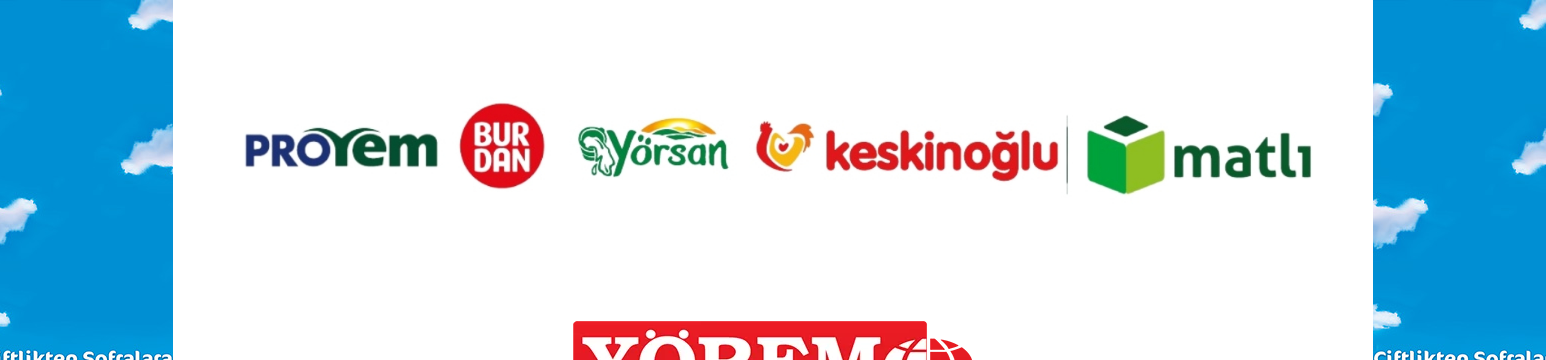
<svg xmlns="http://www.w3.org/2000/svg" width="1546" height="360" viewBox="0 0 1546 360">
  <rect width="100%" height="100%" fill="#ffffff"/>
  <image x="0" y="0" width="1546" height="360" href="img1.png"/>
  <image x="173" y="0" width="1200" height="306" href="img2.png"/>
  <rect x="173" y="306" width="1200" height="54" fill="#ffffff"/>
  <image x="573" y="321" width="399" height="39" href="img3.png"/>
</svg>
